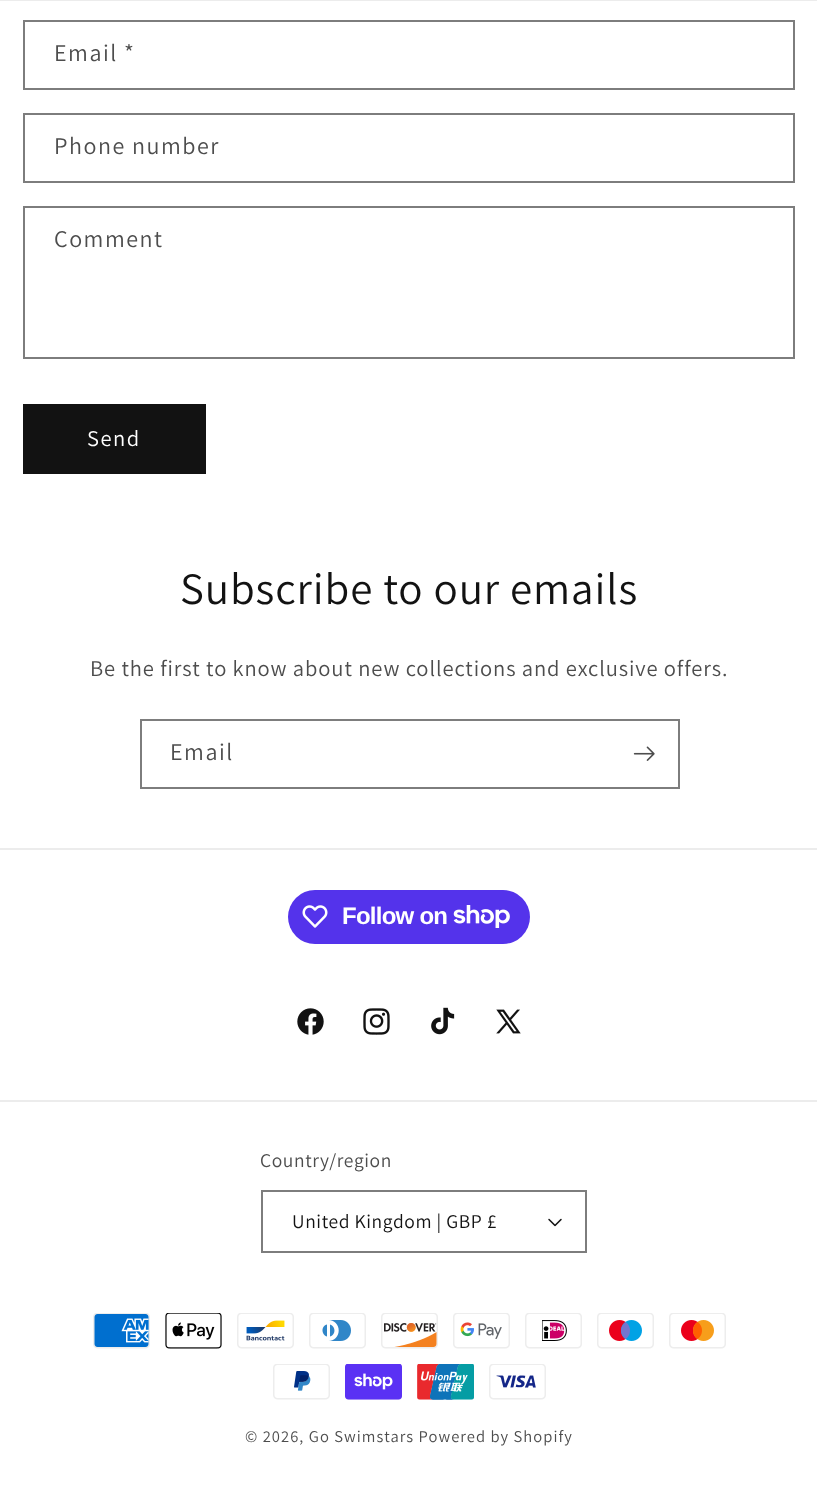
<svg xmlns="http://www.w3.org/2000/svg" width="817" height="1491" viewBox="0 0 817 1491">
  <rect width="100%" height="100%" fill="#ffffff"/>
  <rect x="0" y="0" width="817" height="1" fill="#ececec"/>
  <rect x="24" y="21" width="770" height="68" fill="none" stroke="#7d7d7d" stroke-width="2"/>
  <text x="54" y="61" font-family="Assistant" font-size="24" letter-spacing="1.5" fill="#4d4d4d">Email *</text>
  <rect x="24" y="114" width="770" height="68" fill="none" stroke="#7d7d7d" stroke-width="2"/>
  <text x="54" y="154" font-family="Assistant" font-size="24" letter-spacing="1.5" fill="#4d4d4d">Phone number</text>
  <rect x="24" y="207" width="770" height="151" fill="none" stroke="#7d7d7d" stroke-width="2"/>
  <text x="54" y="247" font-family="Assistant" font-size="24" letter-spacing="1.5" fill="#4d4d4d">Comment</text>
  <rect x="23" y="404" width="183" height="70" fill="#121212"/>
  <text x="87" y="446" font-family="Assistant" font-size="22.5" letter-spacing="1.5" fill="#ffffff">Send</text>
  <text x="180" y="604" font-family="Assistant" font-size="45" letter-spacing="0.9" fill="#121212">Subscribe to our emails</text>
  <text x="90" y="676" font-family="Assistant" font-size="22.5" letter-spacing="0.9" fill="#4d4d4d">Be the first to know about new collections and exclusive offers.</text>
  <rect x="141" y="720" width="538" height="68" fill="none" stroke="#7d7d7d" stroke-width="2"/>
  <text x="170" y="760" font-family="Assistant" font-size="24" letter-spacing="1.5" fill="#4d4d4d">Email</text>
  <image x="633" y="746" width="22" height="15" href="img1.png"/>
  <rect x="0" y="848" width="817" height="2" fill="#ececec"/>
  <rect x="288" y="890" width="242" height="54" rx="27" fill="#5433eb"/>
  <image x="302" y="905" width="26" height="23" href="img2.png"/>
  <text x="342" y="924" font-family="Liberation Sans" font-size="24" font-weight="bold" letter-spacing="-0.75" fill="#ffffff">Follow on</text>
  <image x="453" y="905" width="57" height="23" href="img3.png"/>
  <image x="297" y="1008" width="27" height="27" href="img4.png"/>
  <image x="363" y="1008" width="27" height="27" href="img5.png"/>
  <image x="431" y="1007" width="24" height="28" href="img6.png"/>
  <image x="496" y="1009" width="25" height="25" href="img7.png"/>
  <rect x="0" y="1100" width="817" height="2" fill="#ececec"/>
  <text x="260" y="1167" font-family="Assistant" font-size="19.5" letter-spacing="0.6" fill="#4d4d4d">Country/region</text>
  <image x="548" y="1218" width="14" height="9" href="img8.png"/>
  <rect x="262" y="1191" width="324" height="61" fill="none" stroke="#7d7d7d" stroke-width="2"/>
  <text x="292" y="1228" font-family="Assistant" font-size="19.5" letter-spacing="0.6" fill="#121212">United Kingdom | GBP £</text>
  <image x="93" y="1313" width="57" height="36" href="img9.png"/>
  <image x="165" y="1313" width="57" height="36" href="img10.png"/>
  <image x="237" y="1313" width="57" height="36" href="img11.png"/>
  <image x="309" y="1313" width="57" height="36" href="img12.png"/>
  <image x="381" y="1313" width="57" height="36" href="img13.png"/>
  <image x="453" y="1313" width="57" height="36" href="img14.png"/>
  <image x="525" y="1313" width="57" height="36" href="img15.png"/>
  <image x="597" y="1313" width="57" height="36" href="img16.png"/>
  <image x="669" y="1313" width="57" height="36" href="img17.png"/>
  <image x="273" y="1364" width="57" height="36" href="img18.png"/>
  <image x="345" y="1364" width="57" height="36" href="img19.png"/>
  <image x="417" y="1364" width="57" height="36" href="img20.png"/>
  <image x="489" y="1364" width="57" height="36" href="img21.png"/>
  <text x="245" y="1442" font-family="Assistant" font-size="16.5" letter-spacing="1.05" fill="#4d4d4d">© 2026, Go Swimstars Powered by Shopify</text>
</svg>
